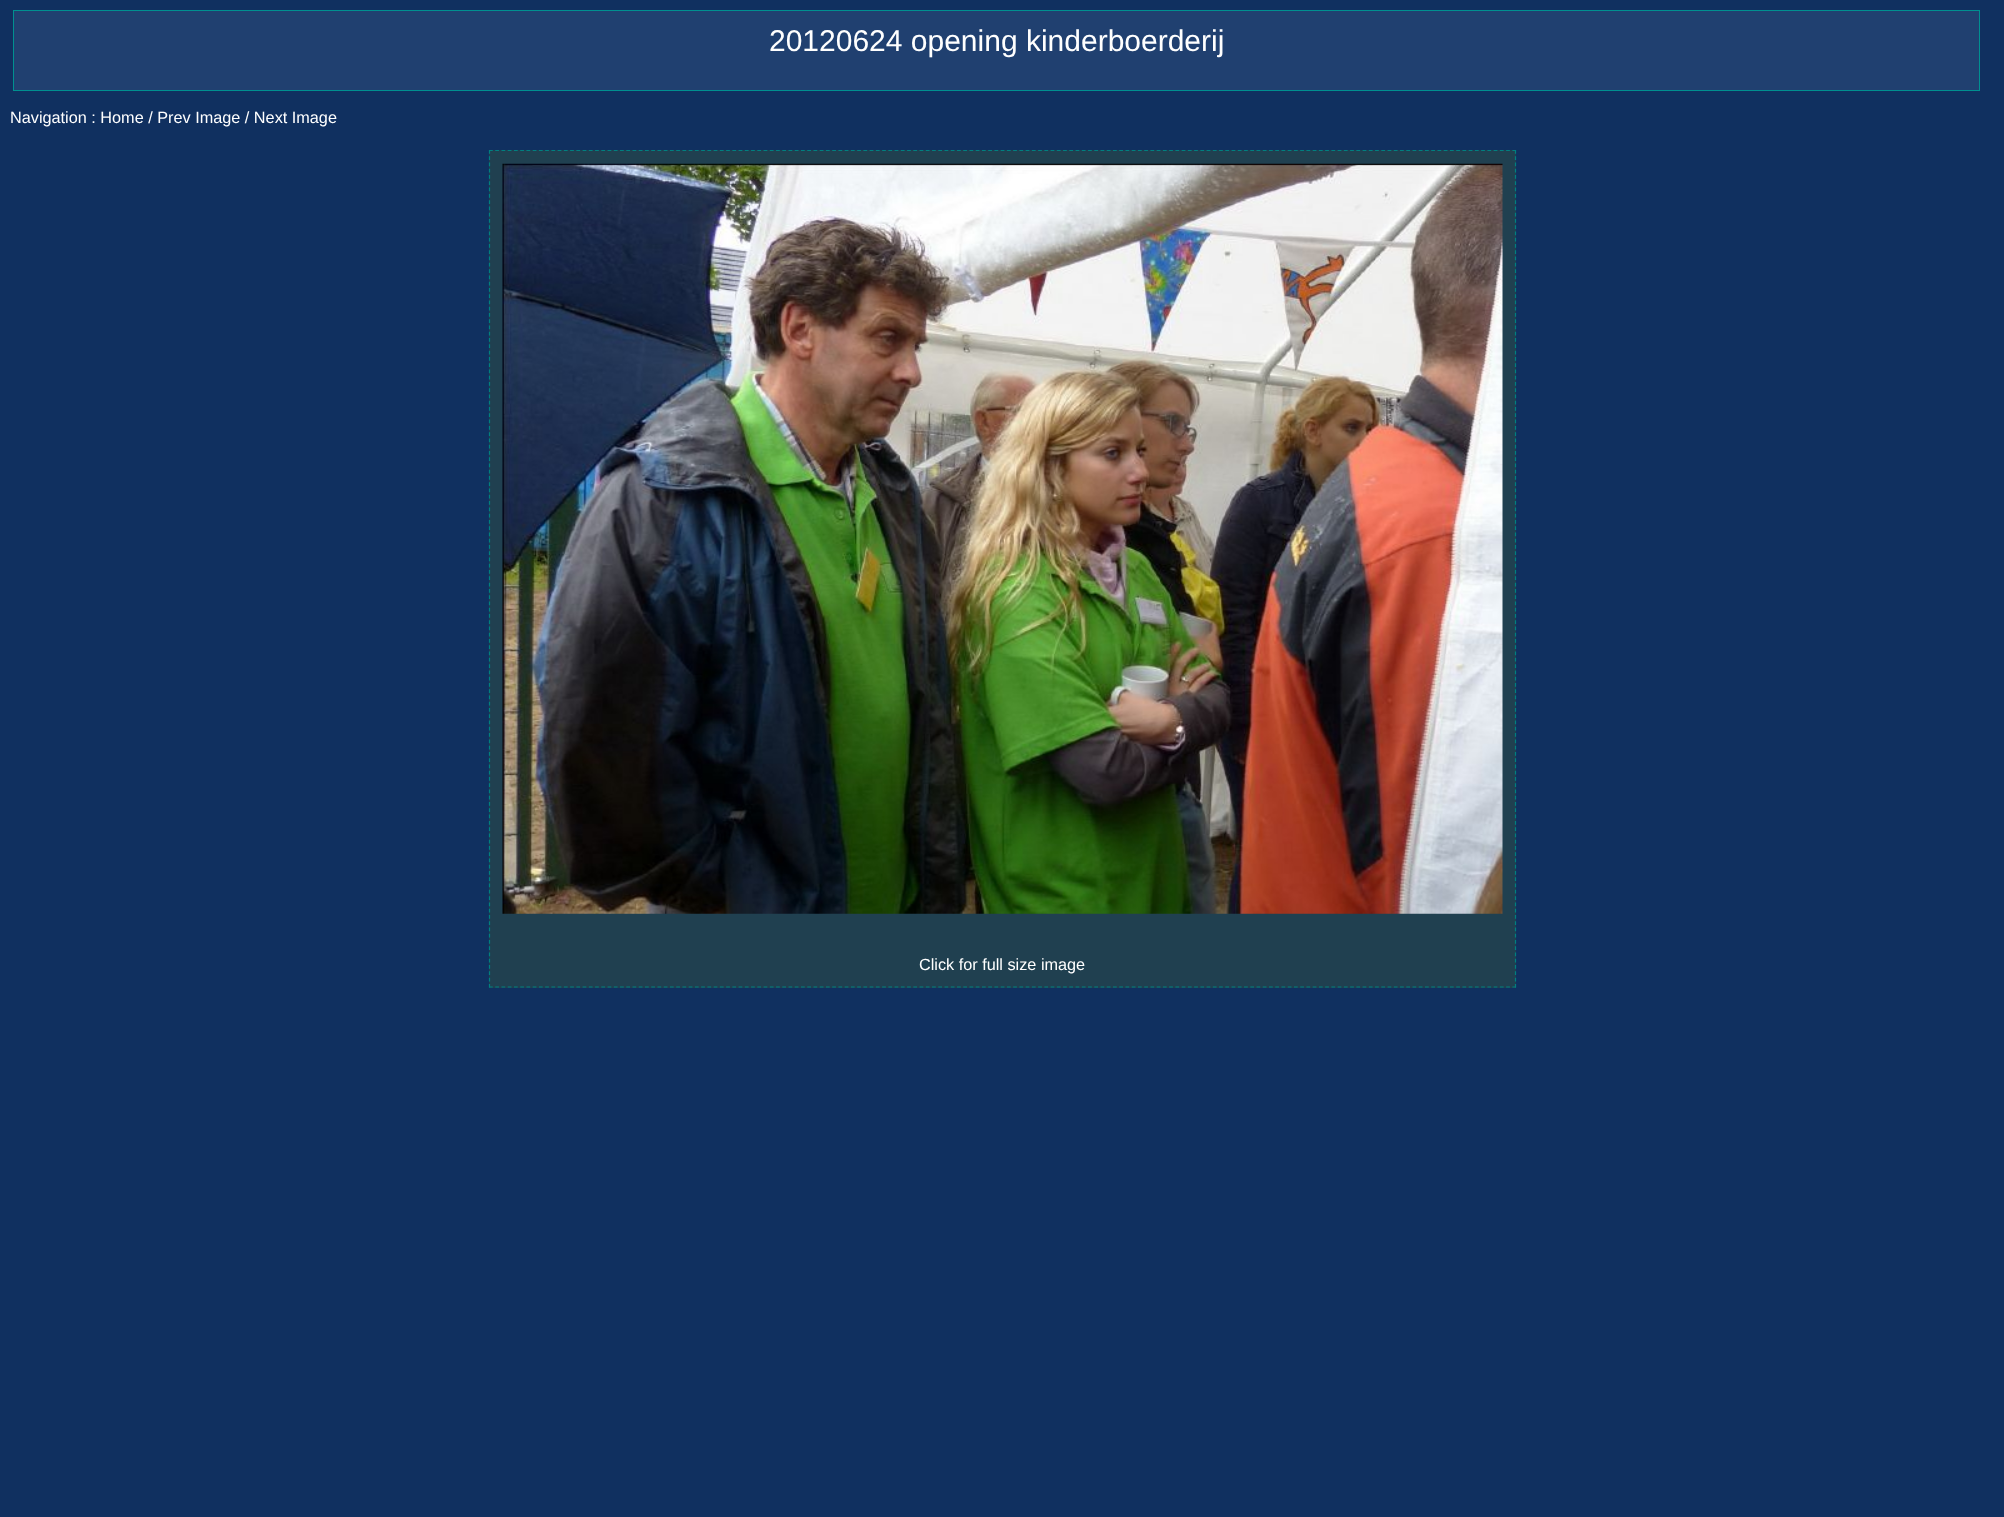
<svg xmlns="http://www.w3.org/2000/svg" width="2004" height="1517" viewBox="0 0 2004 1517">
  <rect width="100%" height="100%" fill="#103060"/>
  <rect x="13.5" y="10.5" width="1966" height="80" fill="#204070" stroke="#009090"/>
  <text x="769" y="51" font-family="Liberation Sans" font-size="30" fill="#ffffff">20120624 opening kinderboerderij</text>
  <text x="10" y="123" font-family="Liberation Sans" font-size="16.25" fill="#ffffff">Navigation : Home / Prev Image / Next Image</text>
  <rect x="489" y="150" width="1027" height="838" fill="#204050"/>
  <path d="M489 150.5H1516" fill="none" stroke="#008080" stroke-width="1.2" stroke-dasharray="3.75 2.49"/>
  <path d="M1515.5 150V987.5" fill="none" stroke="#008080" stroke-width="1.2" stroke-dasharray="3.75 2.52"/>
  <path d="M489 987H1516" fill="none" stroke="#008080" stroke-width="1.2" stroke-dasharray="3.75 2.49"/>
  <path d="M489.5 150V987.5" fill="none" stroke="#008080" stroke-width="1.2" stroke-dasharray="3.75 2.52"/>
  <image x="502" y="163" width="1001" height="751" href="img1.png"/>
  <text x="919" y="970" font-family="Liberation Sans" font-size="16.25" fill="#ffffff">Click for full size image</text>
</svg>
